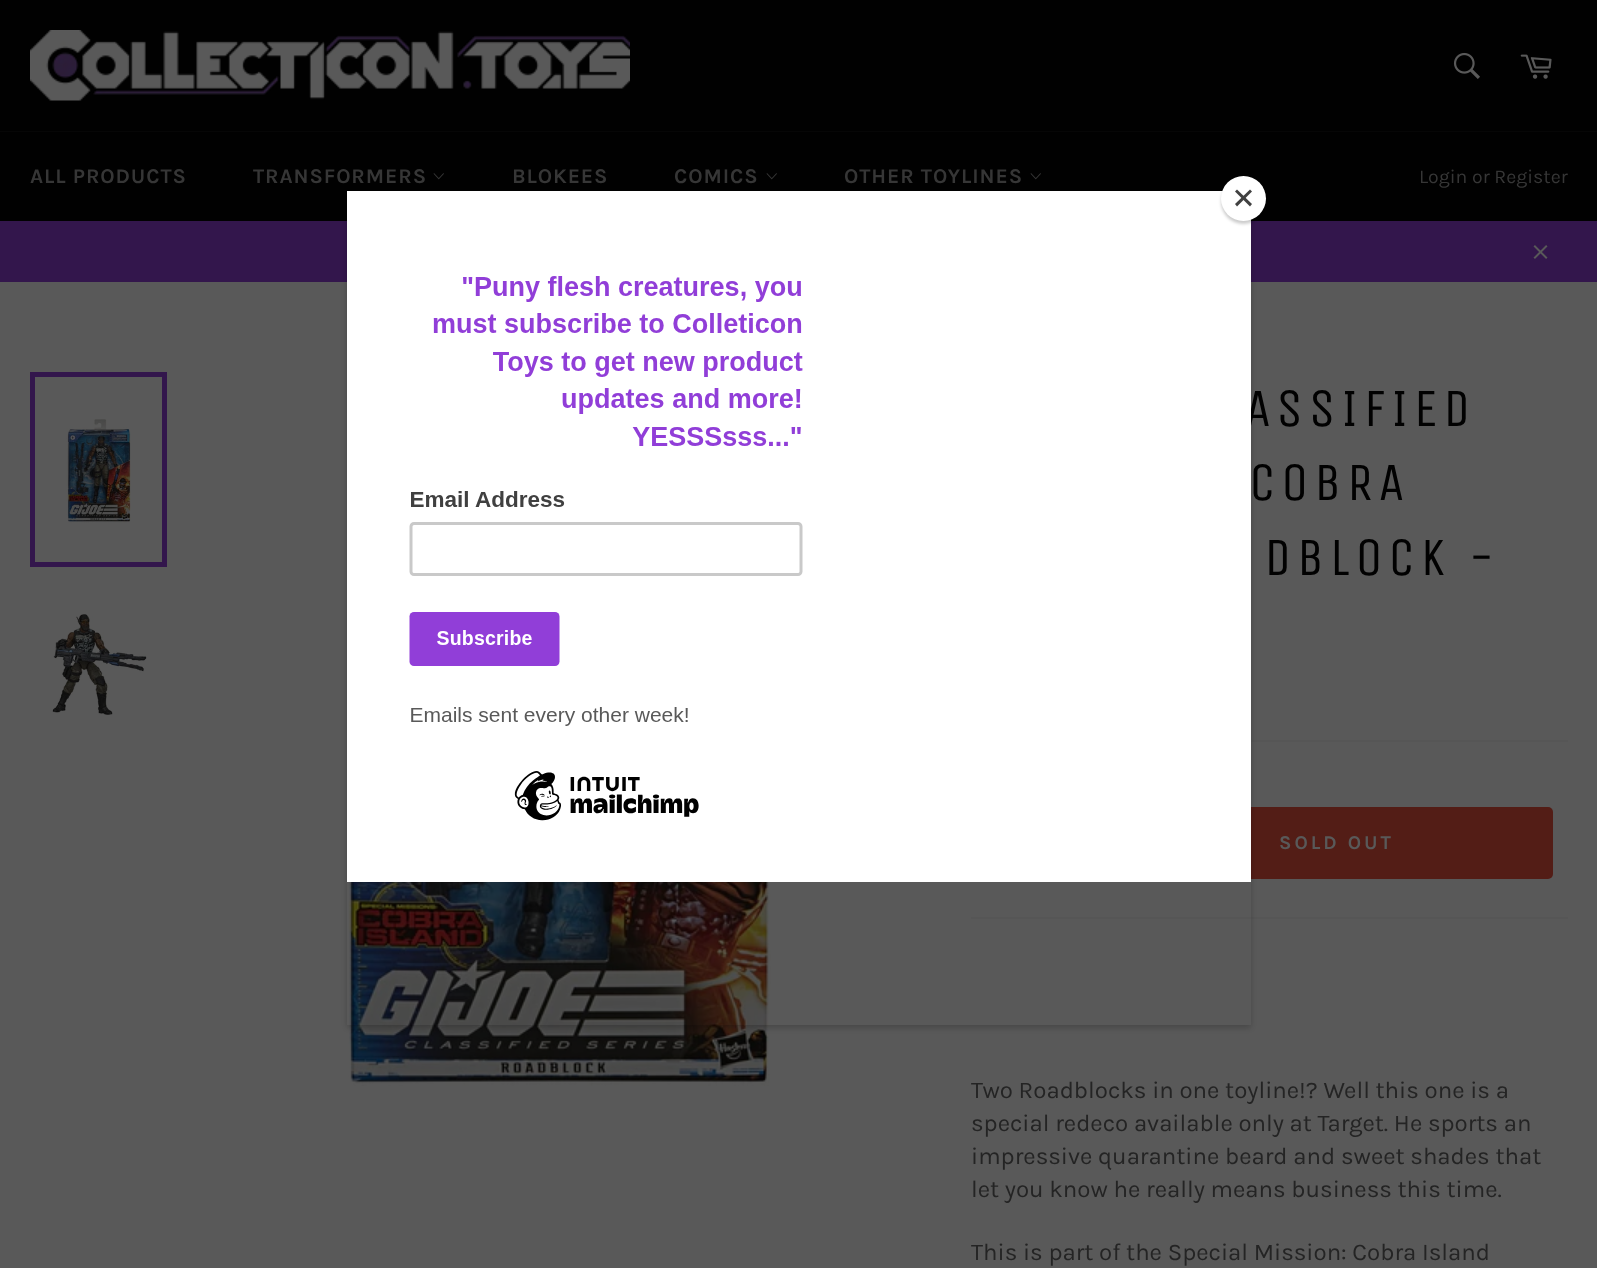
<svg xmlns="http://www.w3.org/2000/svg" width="1597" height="1268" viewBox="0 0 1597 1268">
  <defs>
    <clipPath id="clip1"><path d="M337 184H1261V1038H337ZM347 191H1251V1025H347Z" clip-rule="evenodd"/></clipPath>
    <filter id="blur1" x="-50%" y="-200%" width="200%" height="500%"><feGaussianBlur stdDeviation="3"/></filter>
    <filter id="blur2" x="-50%" y="-200%" width="200%" height="500%"><feGaussianBlur stdDeviation="1.5"/></filter>
  </defs>
  <rect width="100%" height="100%" fill="#010101"/>
  <image x="30" y="30" width="600" height="71" href="img1.png"/>
  <image x="1453" y="52" width="27" height="27" href="img2.png"/>
  <image x="1520" y="54" width="32" height="25" href="img3.png"/>
  <rect x="0" y="131" width="1597" height="1" fill="#060606"/>
  <text x="30" y="183" font-family="Karla" font-size="21" font-weight="bold" letter-spacing="0.9" fill="#363636">ALL PRODUCTS</text>
  <text x="253" y="183" font-family="Karla" font-size="21" font-weight="bold" letter-spacing="0.9" fill="#363636">TRANSFORMERS</text>
  <image x="433" y="173" width="11" height="7" href="img4.png"/>
  <text x="512" y="183" font-family="Karla" font-size="21" font-weight="bold" letter-spacing="0.9" fill="#363636">BLOKEES</text>
  <text x="674" y="183" font-family="Karla" font-size="21" font-weight="bold" letter-spacing="0.9" fill="#363636">COMICS</text>
  <image x="766" y="173" width="11" height="7" href="img4.png"/>
  <text x="844" y="183" font-family="Karla" font-size="21" font-weight="bold" letter-spacing="0.9" fill="#363636">OTHER TOYLINES</text>
  <image x="1030" y="173" width="11" height="7" href="img4.png"/>
  <text x="1419" y="183" font-family="Karla" font-size="19.5" fill="#363636">Login or Register</text>
  <rect x="0" y="221" width="1597" height="61" fill="#33164c"/>
  <image x="1533" y="245" width="15" height="14" href="img5.png"/>
  <rect x="0" y="282" width="1597" height="986" fill="#595959"/>
  <image x="348" y="882" width="423" height="204" href="img9.png"/>
  <rect x="1251" y="740" width="317" height="2" fill="#565656"/>
  <rect x="1121" y="807" width="432" height="72" rx="5" fill="#531d16"/>
  <rect x="971" y="917" width="597" height="2" fill="#565656"/>
  <g clip-path="url(#clip1)">
    <rect x="347" y="194" width="904" height="834" fill="#000000" fill-opacity="0.2" filter="url(#blur1)"/>
  </g>
  <text x="1245" y="426" font-family="Unica One" font-size="54" letter-spacing="5.5" fill="#010101">ASSIFIED</text>
  <image x="347" y="191" width="904" height="691" href="img6.png"/>
  <rect x="1221" y="179" width="45" height="45" rx="22.5" fill="#000000" fill-opacity="0.2" filter="url(#blur2)"/>
  <circle cx="1243.5" cy="198.5" r="22.5" fill="#ffffff"/>
  <path d="M1250 189.5L1252 191.5L1237 206.5L1235 204Z" fill="#414141"/>
  <path d="M1235 191.5L1237 189.5L1252 204L1250 206.5Z" fill="#414141"/>
  <image x="66" y="419" width="65" height="104" href="img7.png"/>
  <rect x="32.5" y="374.5" width="132" height="190" fill="none" stroke="#33164c" stroke-width="5"/>
  <image x="52" y="614" width="95" height="101" href="img8.png"/>
  <text x="1249" y="500" font-family="Unica One" font-size="54" letter-spacing="5.5" fill="#010101">COBRA</text>
  <text x="1264" y="575" font-family="Unica One" font-size="54" letter-spacing="5.5" fill="#010101">DBLOCK -</text>
  <text x="1279" y="849" font-family="Karla" font-size="19.5" font-weight="bold" letter-spacing="3" fill="#595959">SOLD OUT</text>
  <text x="971" y="1098" font-family="Karla" font-size="24" fill="#242424">Two Roadblocks in one toyline!? Well this one is a</text>
  <text x="971" y="1131" font-family="Karla" font-size="24" fill="#242424">special redeco available only at Target. He sports an</text>
  <text x="971" y="1164" font-family="Karla" font-size="24" fill="#242424">impressive quarantine beard and sweet shades that</text>
  <text x="971" y="1197" font-family="Karla" font-size="24" fill="#242424">let you know he really means business this time.</text>
  <text x="971" y="1260" font-family="Karla" font-size="24" fill="#242424">This is part of the Special Mission: Cobra Island</text>
</svg>
